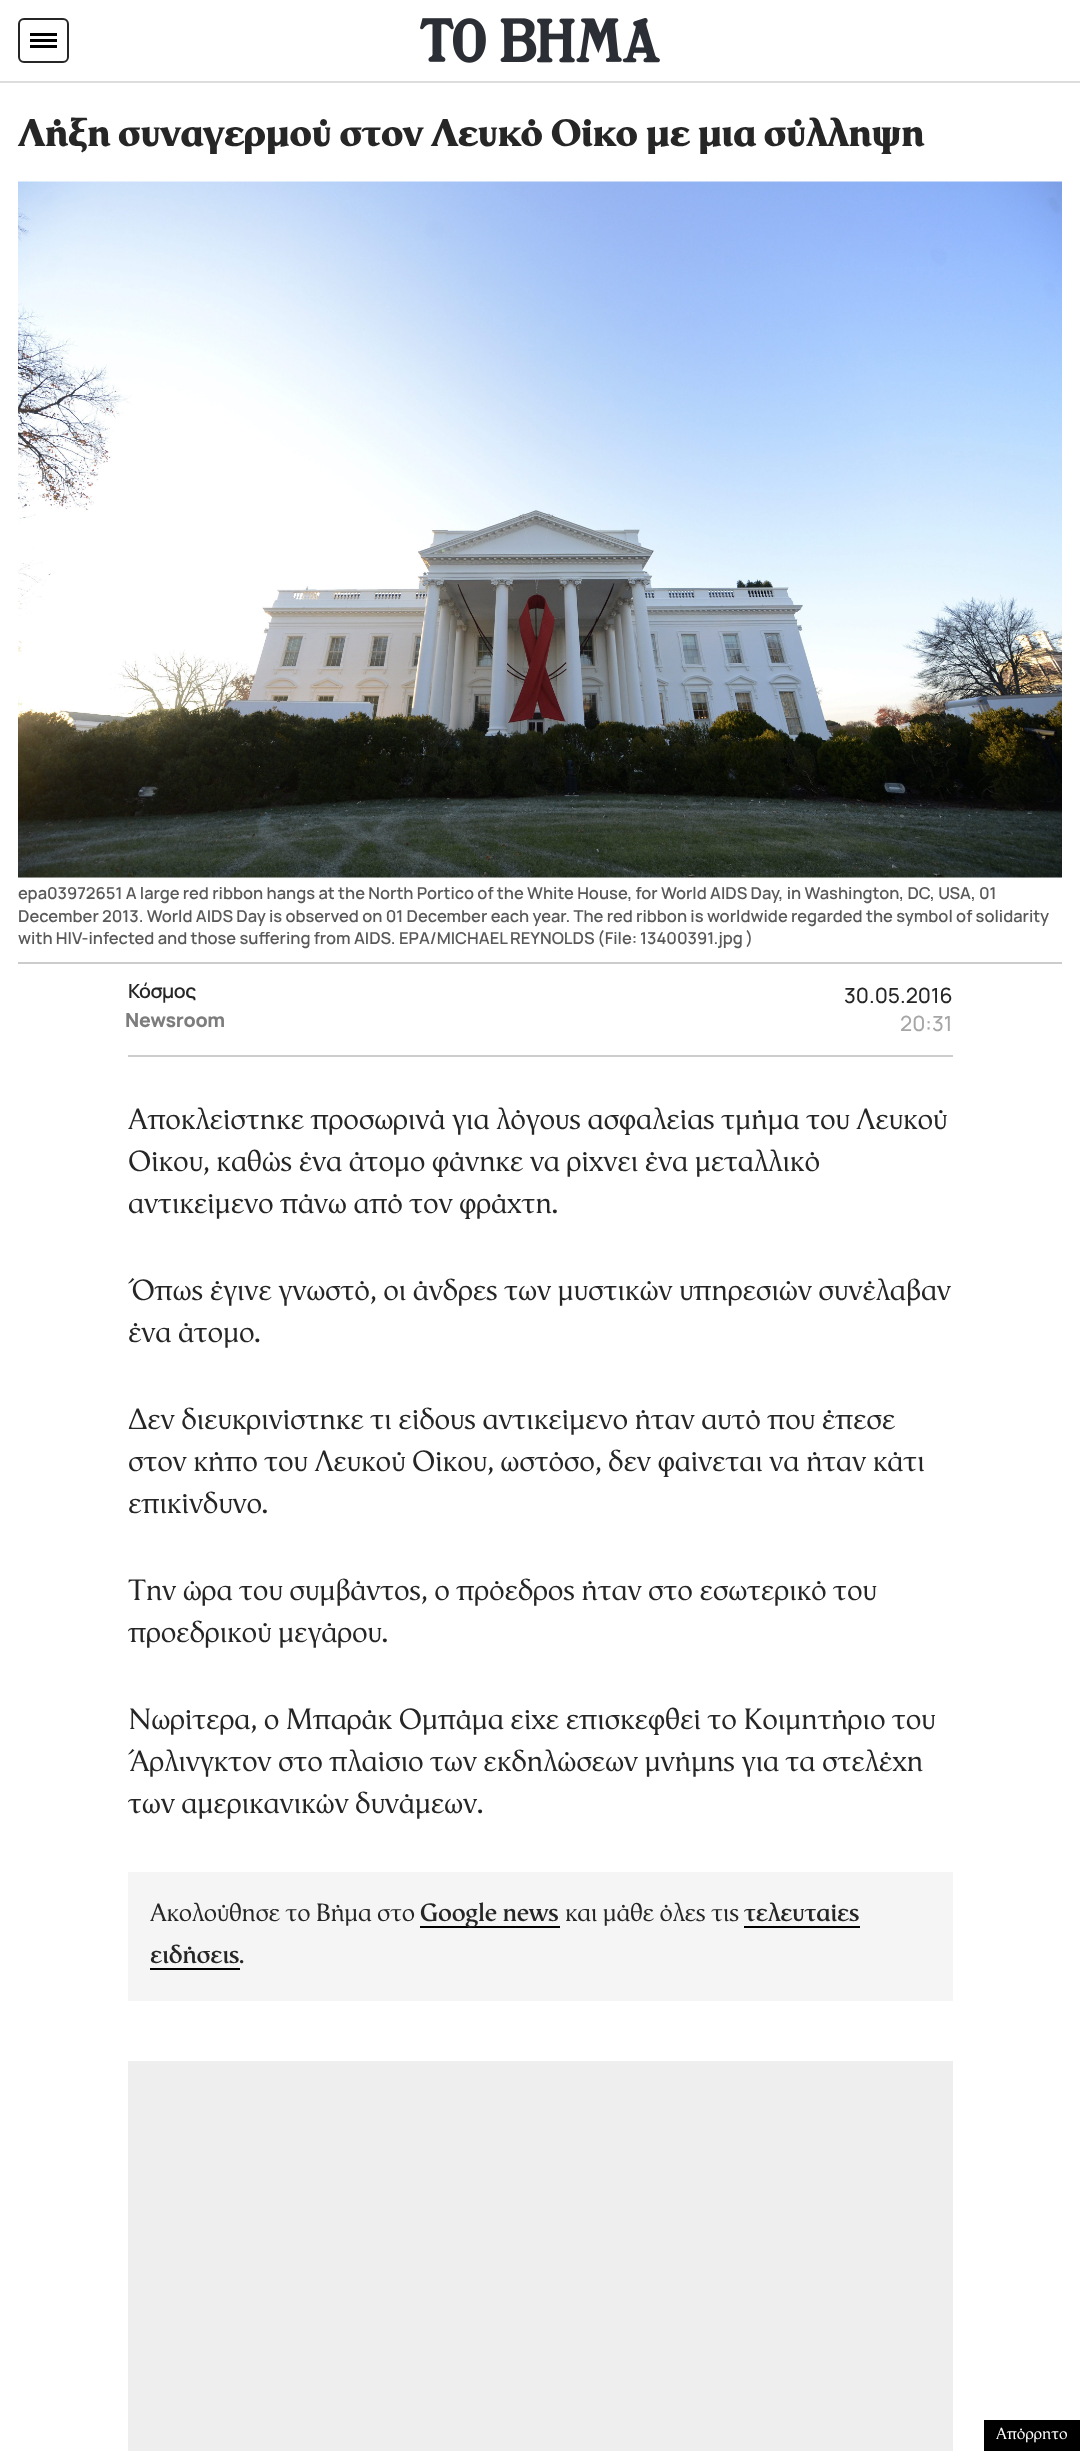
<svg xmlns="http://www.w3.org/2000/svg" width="1080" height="2451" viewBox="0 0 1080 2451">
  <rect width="100%" height="100%" fill="#ffffff"/>
  <rect x="0" y="81" width="1080" height="2" fill="#dddddd"/>
  <rect x="19" y="19" width="49" height="43" rx="5" fill="none" stroke="#262626" stroke-width="2"/>
  <rect x="30" y="33" width="27" height="3" fill="#000000"/>
  <rect x="30" y="39" width="27" height="3" fill="#000000"/>
  <rect x="30" y="45" width="27" height="3" fill="#000000"/>
  <image x="420" y="18" width="240" height="45" href="img1.png"/>
  <text x="18" y="146" font-family="'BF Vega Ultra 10'" font-size="39" letter-spacing="-0.95" fill="#262626">Λήξη συναγερμού στον Λευκό Οίκο με μια σύλληψη</text>
  <rect x="18" y="877" width="1044" height="1" fill="#f4f4f4"/>
  <image x="18" y="181" width="1044" height="697" href="img2.png"/>
  <rect x="18" y="962" width="1044" height="2" fill="#cccccc"/>
  <text x="18" y="899" font-family="Manrope" font-size="16.5" font-weight="600" fill="#595959">epa03972651 A large red ribbon hangs at the North Portico of the White House, for World AIDS Day, in Washington, DC, USA, 01</text>
  <text x="18" y="922" font-family="Manrope" font-size="16.5" font-weight="600" fill="#595959">December 2013. World AIDS Day is observed on 01 December each year. The red ribbon is worldwide regarded the symbol of solidarity</text>
  <text x="18" y="944" font-family="Manrope" font-size="16.5" font-weight="600" fill="#595959">with HIV-infected and those suffering from AIDS.</text>
  <text x="399" y="944" word-spacing="-0.5" font-family="Manrope" font-size="16.5" font-weight="600" fill="#595959">EPA/MICHAEL REYNOLDS (File: 13400391.jpg )</text>
  <rect x="128" y="1055" width="825" height="2" fill="#cccccc"/>
  <text x="128" y="998" font-family="Manrope" font-size="19.5" font-weight="600" letter-spacing="-0.5" fill="#262626">Κόσμος</text>
  <text x="125" y="1027" font-family="Manrope" font-size="19.5" font-weight="800" letter-spacing="-0.25" fill="#7d7d7d">Newsroom</text>
  <text x="844" y="1003" font-family="Manrope" font-size="21" font-weight="500" fill="#262626">30.05.2016</text>
  <text x="900" y="1031" font-family="Manrope" font-size="21" font-weight="500" fill="#a6a6a6">20:31</text>
  <text x="128" y="1129" font-family="'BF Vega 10'" font-size="30" letter-spacing="-0.3" fill="#262626">Αποκλείστηκε προσωρινά για λόγους ασφαλείας τμήμα του Λευκού</text>
  <text x="128" y="1171" font-family="'BF Vega 10'" font-size="30" letter-spacing="-0.3" fill="#262626">Οίκου, καθώς ένα άτομο φάνηκε να ρίχνει ένα μεταλλικό</text>
  <text x="128" y="1213" font-family="'BF Vega 10'" font-size="30" letter-spacing="-0.3" fill="#262626">αντικείμενο πάνω από τον φράχτη.</text>
  <text x="128" y="1300" font-family="'BF Vega 10'" font-size="30" letter-spacing="-0.3" fill="#262626">Όπως έγινε γνωστό, οι άνδρες των μυστικών υπηρεσιών συνέλαβαν</text>
  <text x="128" y="1342" font-family="'BF Vega 10'" font-size="30" letter-spacing="-0.3" fill="#262626">ένα άτομο.</text>
  <text x="128" y="1429" font-family="'BF Vega 10'" font-size="30" letter-spacing="-0.3" fill="#262626">Δεν διευκρινίστηκε τι είδους αντικείμενο ήταν αυτό που έπεσε</text>
  <text x="128" y="1471" font-family="'BF Vega 10'" font-size="30" letter-spacing="-0.3" fill="#262626">στον κήπο του Λευκού Οίκου, ωστόσο, δεν φαίνεται να ήταν κάτι</text>
  <text x="128" y="1513" font-family="'BF Vega 10'" font-size="30" letter-spacing="-0.3" fill="#262626">επικίνδυνο.</text>
  <text x="128" y="1600" font-family="'BF Vega 10'" font-size="30" letter-spacing="-0.3" fill="#262626">Την ώρα του συμβάντος, ο πρόεδρος ήταν στο εσωτερικό του</text>
  <text x="128" y="1642" font-family="'BF Vega 10'" font-size="30" letter-spacing="-0.3" fill="#262626">προεδρικού μεγάρου.</text>
  <text x="128" y="1729" font-family="'BF Vega 10'" font-size="30" letter-spacing="-0.3" fill="#262626">Νωρίτερα, ο Μπαράκ Ομπάμα είχε επισκεφθεί το Κοιμητήριο του</text>
  <text x="128" y="1771" font-family="'BF Vega 10'" font-size="30" letter-spacing="-0.3" fill="#262626">Άρλινγκτον στο πλαίσιο των εκδηλώσεων μνήμης για τα στελέχη</text>
  <text x="128" y="1813" font-family="'BF Vega 10'" font-size="30" letter-spacing="-0.3" fill="#262626">των αμερικανικών δυνάμεων.</text>
  <rect x="128" y="1872" width="825" height="129" fill="#f5f5f5"/>
  <text x="150" y="1921" font-family="'BF Vega 10'" font-size="25.5" letter-spacing="-0.3" fill="#262626">Ακολούθησε το Βήμα στο</text>
  <rect x="420" y="1926" width="140" height="2" fill="#000000"/>
  <text x="420" y="1921" font-family="'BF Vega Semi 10'" font-size="25.5" font-weight="bold" letter-spacing="-0.3" fill="#262626">Google news</text>
  <text x="565" y="1921" font-family="'BF Vega 10'" font-size="25.5" letter-spacing="-0.3" fill="#262626">και μάθε όλες τις</text>
  <text x="744" y="1921" font-family="'BF Vega Semi 10'" font-size="25.5" font-weight="bold" letter-spacing="-0.3" fill="#262626">τελευταίες</text>
  <rect x="744" y="1926" width="116" height="2" fill="#000000"/>
  <text x="150" y="1963" font-family="'BF Vega Semi 10'" font-size="25.5" font-weight="bold" letter-spacing="-0.3" fill="#262626">ειδήσεις</text>
  <rect x="150" y="1968" width="90" height="2" fill="#000000"/>
  <text x="239" y="1963" font-family="'BF Vega 10'" font-size="25.5" letter-spacing="-0.3" fill="#262626">.</text>
  <rect x="128" y="2061" width="825" height="390" fill="#eeeeee"/>
  <rect x="984" y="2420" width="96" height="31" fill="#000000"/>
  <text x="996" y="2439" font-family="'BF Vega 10'" font-size="16.5" fill="#ffffff">Απόρρητο</text>
</svg>
